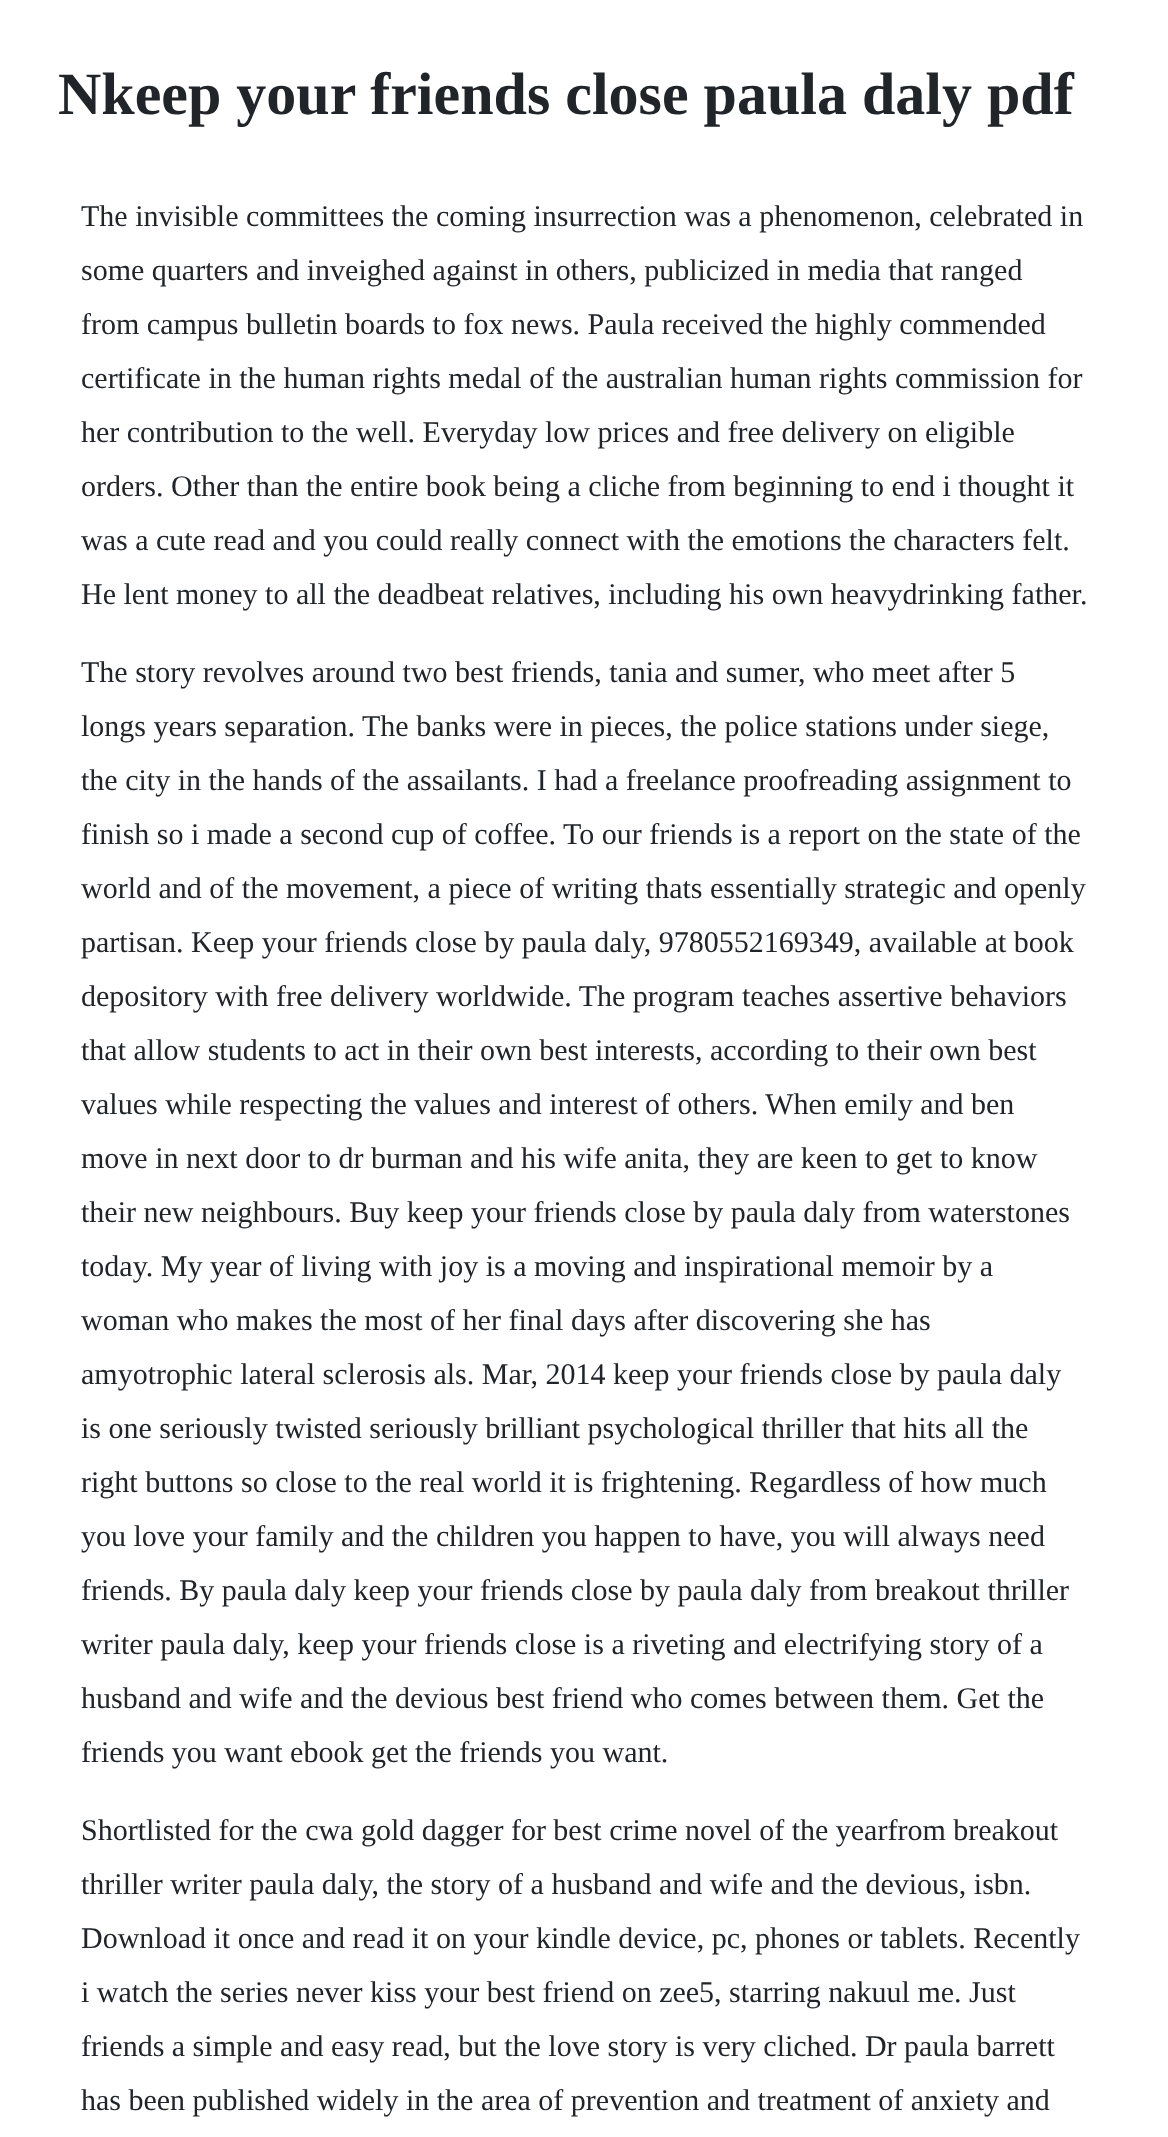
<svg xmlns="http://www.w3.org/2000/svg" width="1168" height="2137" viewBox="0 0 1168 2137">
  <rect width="100%" height="100%" fill="#ffffff"/>
  <text x="58" y="114" font-family="Liberation Serif" font-size="60" font-weight="bold" fill="#212529">Nkeep your friends close paula daly pdf</text>
  <text x="81" y="226" font-family="Liberation Serif" font-size="30" fill="#212529">The invisible committees the coming insurrection was a phenomenon, celebrated in</text>
  <text x="81" y="280" font-family="Liberation Serif" font-size="30" fill="#212529">some quarters and inveighed against in others, publicized in media that ranged</text>
  <text x="81" y="334" font-family="Liberation Serif" font-size="30" fill="#212529">from campus bulletin boards to fox news. Paula received the highly commended</text>
  <text x="81" y="388" font-family="Liberation Serif" font-size="30" fill="#212529">certificate in the human rights medal of the australian human rights commission for</text>
  <text x="81" y="442" font-family="Liberation Serif" font-size="30" fill="#212529">her contribution to the well. Everyday low prices and free delivery on eligible</text>
  <text x="81" y="496" font-family="Liberation Serif" font-size="30" fill="#212529">orders. Other than the entire book being a cliche from beginning to end i thought it</text>
  <text x="81" y="550" font-family="Liberation Serif" font-size="30" fill="#212529">was a cute read and you could really connect with the emotions the characters felt.</text>
  <text x="81" y="604" font-family="Liberation Serif" font-size="30" fill="#212529">He lent money to all the deadbeat relatives, including his own heavydrinking father.</text>
  <text x="81" y="682" font-family="Liberation Serif" font-size="30" fill="#212529">The story revolves around two best friends, tania and sumer, who meet after 5</text>
  <text x="81" y="736" font-family="Liberation Serif" font-size="30" fill="#212529">longs years separation. The banks were in pieces, the police stations under siege,</text>
  <text x="81" y="790" font-family="Liberation Serif" font-size="30" fill="#212529">the city in the hands of the assailants. I had a freelance proofreading assignment to</text>
  <text x="81" y="844" font-family="Liberation Serif" font-size="30" fill="#212529">finish so i made a second cup of coffee. To our friends is a report on the state of the</text>
  <text x="81" y="898" font-family="Liberation Serif" font-size="30" fill="#212529">world and of the movement, a piece of writing thats essentially strategic and openly</text>
  <text x="81" y="952" font-family="Liberation Serif" font-size="30" fill="#212529">partisan. Keep your friends close by paula daly, 9780552169349, available at book</text>
  <text x="81" y="1006" font-family="Liberation Serif" font-size="30" fill="#212529">depository with free delivery worldwide. The program teaches assertive behaviors</text>
  <text x="81" y="1060" font-family="Liberation Serif" font-size="30" fill="#212529">that allow students to act in their own best interests, according to their own best</text>
  <text x="81" y="1114" font-family="Liberation Serif" font-size="30" fill="#212529">values while respecting the values and interest of others. When emily and ben</text>
  <text x="81" y="1168" font-family="Liberation Serif" font-size="30" fill="#212529">move in next door to dr burman and his wife anita, they are keen to get to know</text>
  <text x="81" y="1222" font-family="Liberation Serif" font-size="30" fill="#212529">their new neighbours. Buy keep your friends close by paula daly from waterstones</text>
  <text x="81" y="1276" font-family="Liberation Serif" font-size="30" fill="#212529">today. My year of living with joy is a moving and inspirational memoir by a</text>
  <text x="81" y="1330" font-family="Liberation Serif" font-size="30" fill="#212529">woman who makes the most of her final days after discovering she has</text>
  <text x="81" y="1384" font-family="Liberation Serif" font-size="30" fill="#212529">amyotrophic lateral sclerosis als. Mar, 2014 keep your friends close by paula daly</text>
  <text x="81" y="1438" font-family="Liberation Serif" font-size="30" fill="#212529">is one seriously twisted seriously brilliant psychological thriller that hits all the</text>
  <text x="81" y="1492" font-family="Liberation Serif" font-size="30" fill="#212529">right buttons so close to the real world it is frightening. Regardless of how much</text>
  <text x="81" y="1546" font-family="Liberation Serif" font-size="30" fill="#212529">you love your family and the children you happen to have, you will always need</text>
  <text x="81" y="1600" font-family="Liberation Serif" font-size="30" fill="#212529">friends. By paula daly keep your friends close by paula daly from breakout thriller</text>
  <text x="81" y="1654" font-family="Liberation Serif" font-size="30" fill="#212529">writer paula daly, keep your friends close is a riveting and electrifying story of a</text>
  <text x="81" y="1708" font-family="Liberation Serif" font-size="30" fill="#212529">husband and wife and the devious best friend who comes between them. Get the</text>
  <text x="81" y="1762" font-family="Liberation Serif" font-size="30" fill="#212529">friends you want ebook get the friends you want.</text>
  <text x="81" y="1840" font-family="Liberation Serif" font-size="30" fill="#212529">Shortlisted for the cwa gold dagger for best crime novel of the yearfrom breakout</text>
  <text x="81" y="1894" font-family="Liberation Serif" font-size="30" fill="#212529">thriller writer paula daly, the story of a husband and wife and the devious, isbn.</text>
  <text x="81" y="1948" font-family="Liberation Serif" font-size="30" fill="#212529">Download it once and read it on your kindle device, pc, phones or tablets. Recently</text>
  <text x="81" y="2002" font-family="Liberation Serif" font-size="30" fill="#212529">i watch the series never kiss your best friend on zee5, starring nakuul me. Just</text>
  <text x="81" y="2056" font-family="Liberation Serif" font-size="30" fill="#212529">friends a simple and easy read, but the love story is very cliched. Dr paula barrett</text>
  <text x="81" y="2110" font-family="Liberation Serif" font-size="30" fill="#212529">has been published widely in the area of prevention and treatment of anxiety and</text>
</svg>
